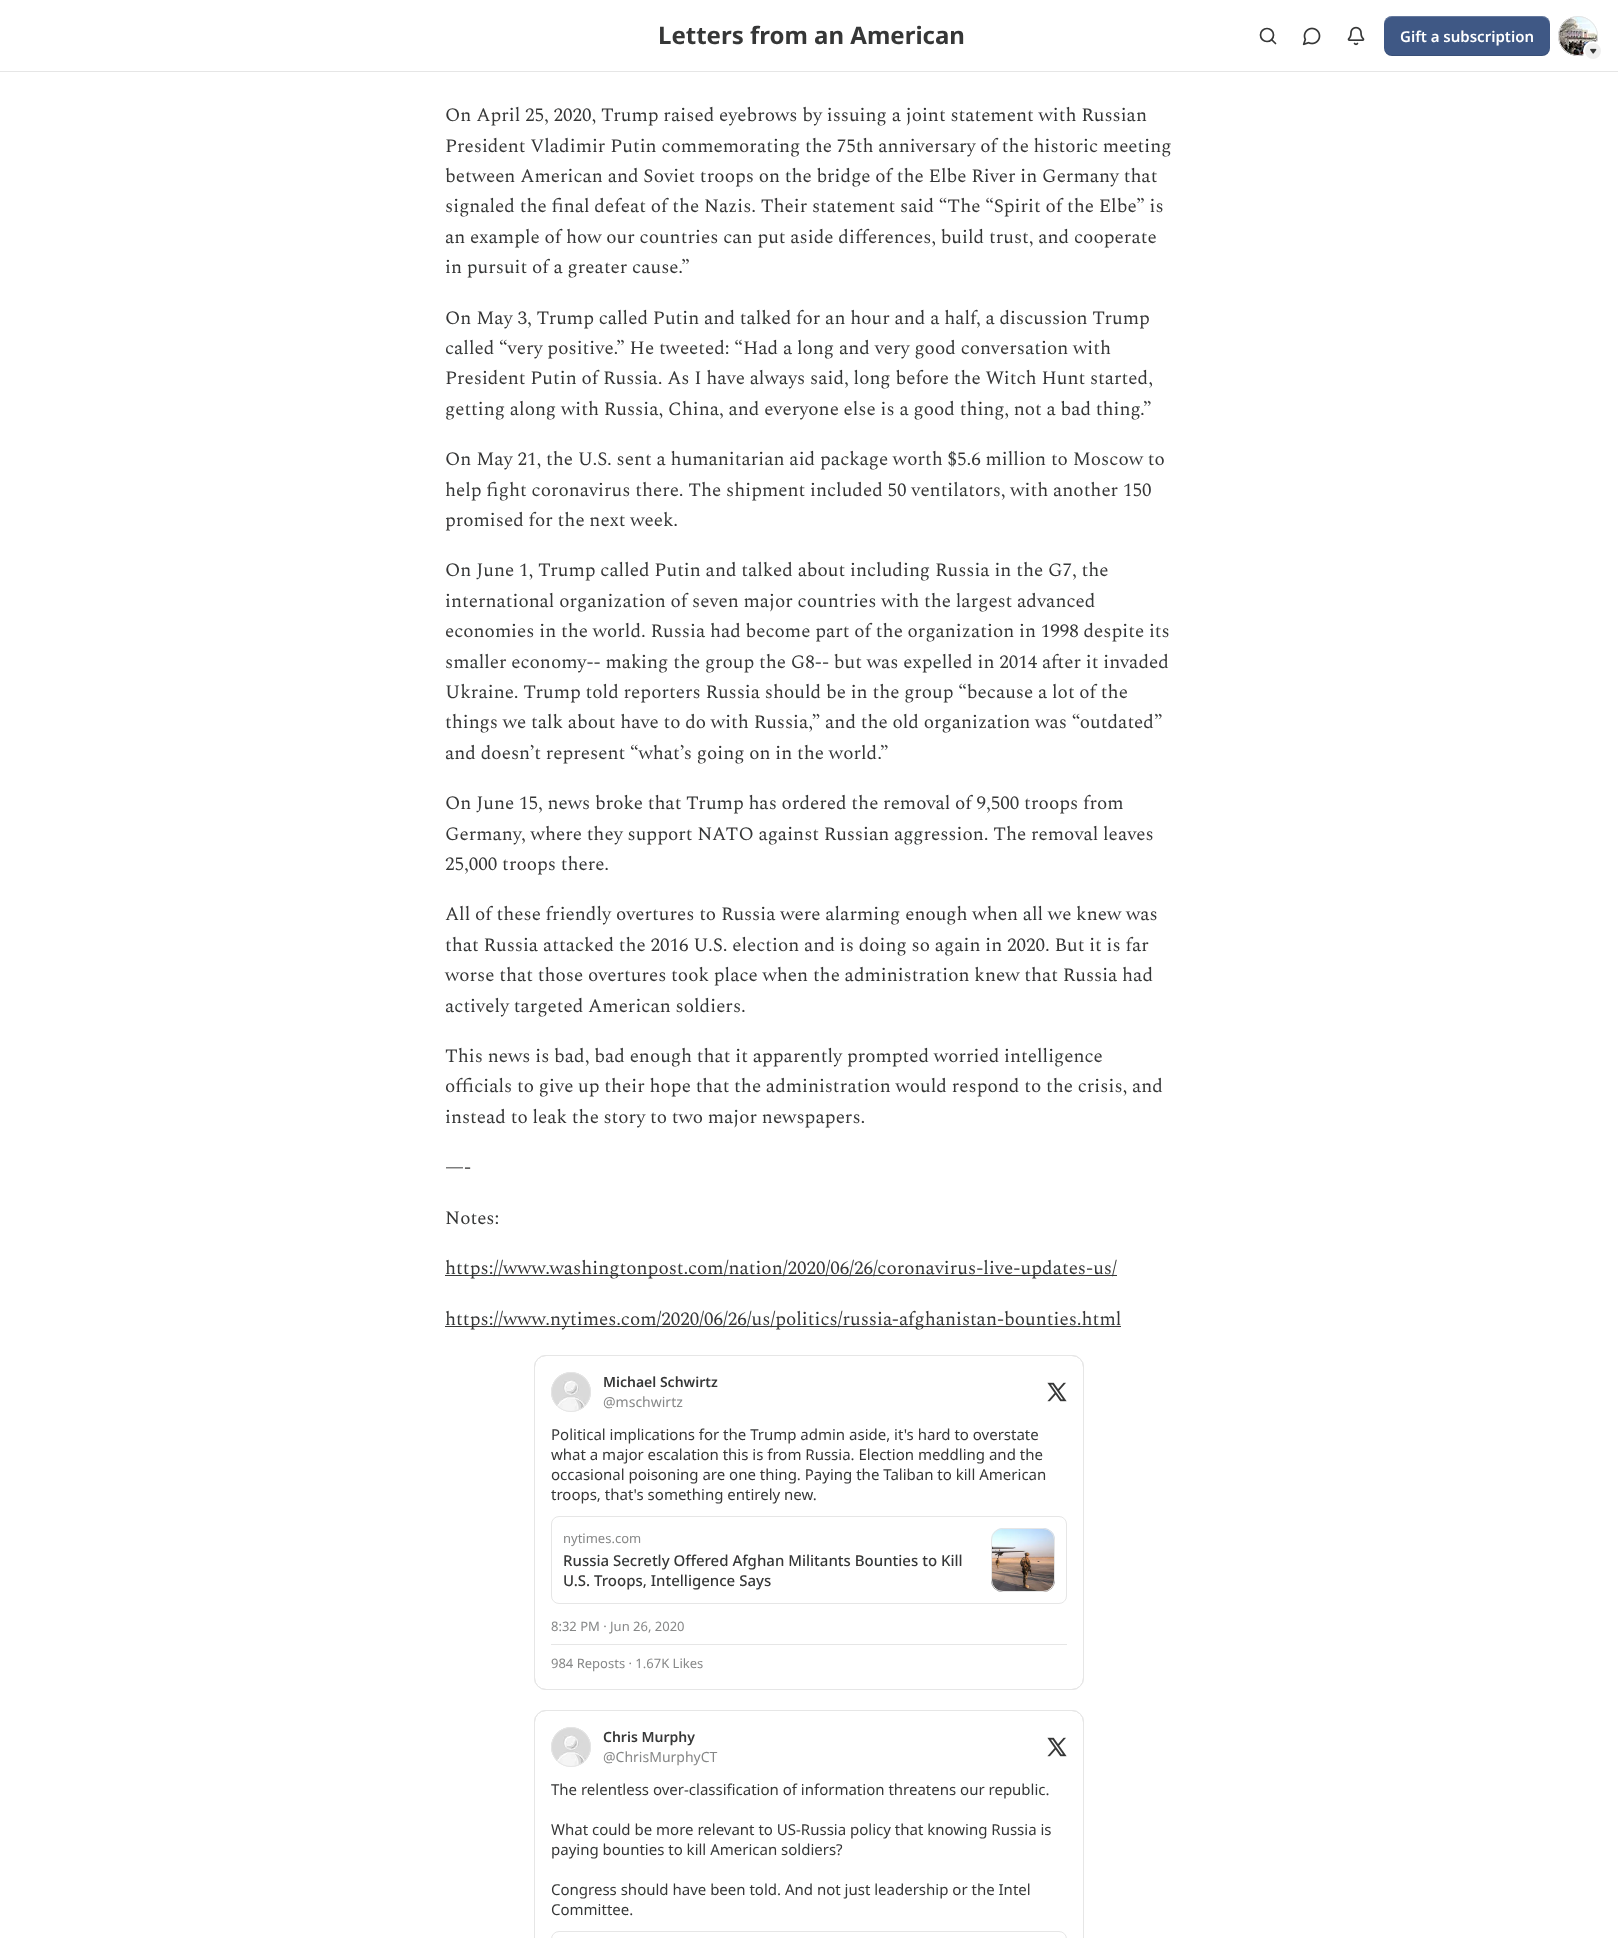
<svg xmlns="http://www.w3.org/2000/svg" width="1618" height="1938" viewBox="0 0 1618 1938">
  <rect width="100%" height="100%" fill="#ffffff"/>
  <rect x="0" y="71" width="1618" height="1" fill="#e6e6e6"/>
  <text x="658" y="44" font-family="Noto Sans" font-size="24" font-weight="bold" fill="#363737">Letters from an American</text>
  <circle cx="1267" cy="35" r="6.5" fill="none" stroke="#363737" stroke-width="1.7"/>
  <path d="M1275.5 43.5L1272 40" fill="none" stroke="#363737" stroke-width="1.7" stroke-linecap="round" stroke-linejoin="round"/>
  <image x="1302" y="27" width="19" height="19" href="img1.png"/>
  <image x="1347" y="26" width="18" height="20" href="img2.png"/>
  <rect x="1384" y="16" width="166" height="40" rx="8" fill="#3f5885"/>
  <path d="M1384 47V48C1384 52 1388 56 1392 56H1542C1546 56 1550 52 1550 48V47C1550 51 1546 55 1542 55H1392C1388 55 1384 51 1384 47Z" fill="#000000" fill-opacity="0.1"/>
  <path d="M1392 17H1542C1546 17 1550 21 1550 25V24C1550 20 1546 16 1542 16H1392C1388 16 1384 20 1384 24V25C1384 21 1388 17 1392 17Z" fill="#ffffff" fill-opacity="0.2"/>
  <text x="1400" y="42" font-family="Noto Sans" font-size="15" font-weight="600" fill="#ffffff">Gift a subscription</text>
  <circle cx="1578" cy="36" r="19.5" fill="none" stroke="#e6e6e6"/>
  <image x="1558" y="16" width="40" height="40" href="img3.png"/>
  <circle cx="1578" cy="36" r="19.5" fill="none" stroke="#e6e6e6"/>
  <circle cx="1593" cy="51" r="9" fill="#f0f0f0" stroke="#ffffff" stroke-width="2"/>
  <image x="1590" y="48" width="7" height="6" href="img4.png"/>
  <text x="445" y="121" font-family="Spectral" font-size="19" fill="#363737">On April 25, 2020, Trump raised eyebrows by issuing a joint statement with Russian</text>
  <text x="445" y="152" font-family="Spectral" font-size="19" fill="#363737">President Vladimir Putin commemorating the 75th anniversary of the historic meeting</text>
  <text x="445" y="182" font-family="Spectral" font-size="19" fill="#363737">between American and Soviet troops on the bridge of the Elbe River in Germany that</text>
  <text x="445" y="212" font-family="Spectral" font-size="19" fill="#363737">signaled the final defeat of the Nazis. Their statement said “The “Spirit of the Elbe” is</text>
  <text x="445" y="243" font-family="Spectral" font-size="19" fill="#363737">an example of how our countries can put aside differences, build trust, and cooperate</text>
  <text x="445" y="273" font-family="Spectral" font-size="19" fill="#363737">in pursuit of a greater cause.”</text>
  <text x="445" y="324" font-family="Spectral" font-size="19" fill="#363737">On May 3, Trump called Putin and talked for an hour and a half, a discussion Trump</text>
  <text x="445" y="354" font-family="Spectral" font-size="19" fill="#363737">called “very positive.” He tweeted: “Had a long and very good conversation with</text>
  <text x="445" y="384" font-family="Spectral" font-size="19" fill="#363737">President Putin of Russia. As I have always said, long before the Witch Hunt started,</text>
  <text x="445" y="415" font-family="Spectral" font-size="19" fill="#363737">getting along with Russia, China, and everyone else is a good thing, not a bad thing.”</text>
  <text x="445" y="465" font-family="Spectral" font-size="19" fill="#363737">On May 21, the U.S. sent a humanitarian aid package worth $5.6 million to Moscow to</text>
  <text x="445" y="496" font-family="Spectral" font-size="19" fill="#363737">help fight coronavirus there. The shipment included 50 ventilators, with another 150</text>
  <text x="445" y="526" font-family="Spectral" font-size="19" fill="#363737">promised for the next week.</text>
  <text x="445" y="576" font-family="Spectral" font-size="19" fill="#363737">On June 1, Trump called Putin and talked about including Russia in the G7, the</text>
  <text x="445" y="607" font-family="Spectral" font-size="19" fill="#363737">international organization of seven major countries with the largest advanced</text>
  <text x="445" y="637" font-family="Spectral" font-size="19" fill="#363737">economies in the world. Russia had become part of the organization in 1998 despite its</text>
  <text x="445" y="668" font-family="Spectral" font-size="19" fill="#363737">smaller economy-- making the group the G8-- but was expelled in 2014 after it invaded</text>
  <text x="445" y="698" font-family="Spectral" font-size="19" fill="#363737">Ukraine. Trump told reporters Russia should be in the group “because a lot of the</text>
  <text x="445" y="728" font-family="Spectral" font-size="19" fill="#363737">things we talk about have to do with Russia,” and the old organization was “outdated”</text>
  <text x="445" y="759" font-family="Spectral" font-size="19" fill="#363737">and doesn’t represent “what’s going on in the world.”</text>
  <text x="445" y="809" font-family="Spectral" font-size="19" fill="#363737">On June 15, news broke that Trump has ordered the removal of 9,500 troops from</text>
  <text x="445" y="840" font-family="Spectral" font-size="19" fill="#363737">Germany, where they support NATO against Russian aggression. The removal leaves</text>
  <text x="445" y="870" font-family="Spectral" font-size="19" fill="#363737">25,000 troops there.</text>
  <text x="445" y="920" font-family="Spectral" font-size="19" fill="#363737">All of these friendly overtures to Russia were alarming enough when all we knew was</text>
  <text x="445" y="951" font-family="Spectral" font-size="19" fill="#363737">that Russia attacked the 2016 U.S. election and is doing so again in 2020. But it is far</text>
  <text x="445" y="981" font-family="Spectral" font-size="19" fill="#363737">worse that those overtures took place when the administration knew that Russia had</text>
  <text x="445" y="1012" font-family="Spectral" font-size="19" fill="#363737">actively targeted American soldiers.</text>
  <text x="445" y="1062" font-family="Spectral" font-size="19" fill="#363737">This news is bad, bad enough that it apparently prompted worried intelligence</text>
  <text x="445" y="1092" font-family="Spectral" font-size="19" fill="#363737">officials to give up their hope that the administration would respond to the crisis, and</text>
  <text x="445" y="1123" font-family="Spectral" font-size="19" fill="#363737">instead to leak the story to two major newspapers.</text>
  <text x="445" y="1173" font-family="Spectral" font-size="19" fill="#363737">—-</text>
  <text x="445" y="1224" font-family="Spectral" font-size="19" fill="#363737">Notes:</text>
  <rect x="445" y="1275" width="672" height="1" fill="#363737"/>
  <text x="445" y="1274" font-family="Spectral" font-size="19" fill="#363737">https://www.washingtonpost.com/nation/2020/06/26/coronavirus-live-updates-us/</text>
  <rect x="445" y="1326" width="676" height="1" fill="#363737"/>
  <text x="445" y="1325" font-family="Spectral" font-size="19" fill="#363737">https://www.nytimes.com/2020/06/26/us/politics/russia-afghanistan-bounties.html</text>
  <rect x="534.5" y="1355.5" width="549" height="334" rx="11.5" fill="none" stroke="#e6e6e6"/>
  <rect x="551.5" y="1516.5" width="515" height="87" rx="7.5" fill="none" stroke="#e6e6e6"/>
  <rect x="534.5" y="1355.5" width="549" height="334" rx="11.5" fill="none" stroke="#e6e6e6"/>
  <circle cx="571" cy="1392" r="19.5" fill="none" stroke="#e6e6e6"/>
  <image x="551" y="1372" width="40" height="40" href="img5.png"/>
  <circle cx="571" cy="1392" r="19.5" fill="none" stroke="#e6e6e6"/>
  <text x="603" y="1387" font-family="Noto Sans" font-size="14" font-weight="600" fill="#363737">Michael Schwirtz</text>
  <text x="603" y="1407" font-family="Noto Sans" font-size="14" fill="#868787">@mschwirtz</text>
  <image x="1047" y="1382" width="20" height="20" href="img6.png"/>
  <text x="551" y="1440" font-family="Noto Sans" font-size="15" fill="#363737">Political implications for the Trump admin aside, it's hard to overstate</text>
  <text x="551" y="1460" font-family="Noto Sans" font-size="15" fill="#363737">what a major escalation this is from Russia. Election meddling and the</text>
  <text x="551" y="1480" font-family="Noto Sans" font-size="15" fill="#363737">occasional poisoning are one thing. Paying the Taliban to kill American</text>
  <text x="551" y="1500" font-family="Noto Sans" font-size="15" fill="#363737">troops, that's something entirely new.</text>
  <text x="563" y="1543" font-family="Noto Sans" font-size="13" fill="#868787">nytimes.com</text>
  <text x="563" y="1566" font-family="Noto Sans" font-size="15" font-weight="500" fill="#363737">Russia Secretly Offered Afghan Militants Bounties to Kill</text>
  <text x="563" y="1586" font-family="Noto Sans" font-size="15" font-weight="500" fill="#363737">U.S. Troops, Intelligence Says</text>
  <image x="991" y="1528" width="64" height="64" href="img7.png"/>
  <rect x="991.5" y="1528.5" width="63" height="63" rx="11.5" fill="none" stroke="#e6e6e6"/>
  <text x="551" y="1631" font-family="Noto Sans" font-size="13" fill="#868787">8:32 PM · Jun 26, 2020</text>
  <rect x="551" y="1644" width="516" height="1" fill="#e6e6e6"/>
  <text x="551" y="1668" font-family="Noto Sans" font-size="13" fill="#868787">984 Reposts · 1.67K Likes</text>
  <rect x="534.5" y="1710.5" width="549" height="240" rx="11.5" fill="none" stroke="#e6e6e6"/>
  <rect x="551.5" y="1931.5" width="515" height="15" rx="7.5" fill="none" stroke="#e6e6e6"/>
  <rect x="534.5" y="1710.5" width="549" height="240" rx="11.5" fill="none" stroke="#e6e6e6"/>
  <circle cx="571" cy="1747" r="19.5" fill="none" stroke="#e6e6e6"/>
  <image x="551" y="1727" width="40" height="40" href="img5.png"/>
  <circle cx="571" cy="1747" r="19.5" fill="none" stroke="#e6e6e6"/>
  <text x="603" y="1742" font-family="Noto Sans" font-size="14" font-weight="600" fill="#363737">Chris Murphy</text>
  <text x="603" y="1762" font-family="Noto Sans" font-size="14" fill="#868787">@ChrisMurphyCT</text>
  <image x="1047" y="1737" width="20" height="20" href="img6.png"/>
  <text x="551" y="1795" font-family="Noto Sans" font-size="15" fill="#363737">The relentless over-classification of information threatens our republic.</text>
  <text x="551" y="1835" font-family="Noto Sans" font-size="15" fill="#363737">What could be more relevant to US-Russia policy that knowing Russia is</text>
  <text x="551" y="1855" font-family="Noto Sans" font-size="15" fill="#363737">paying bounties to kill American soldiers?</text>
  <text x="551" y="1895" font-family="Noto Sans" font-size="15" fill="#363737">Congress should have been told. And not just leadership or the Intel</text>
  <text x="551" y="1915" font-family="Noto Sans" font-size="15" fill="#363737">Committee.</text>
</svg>
